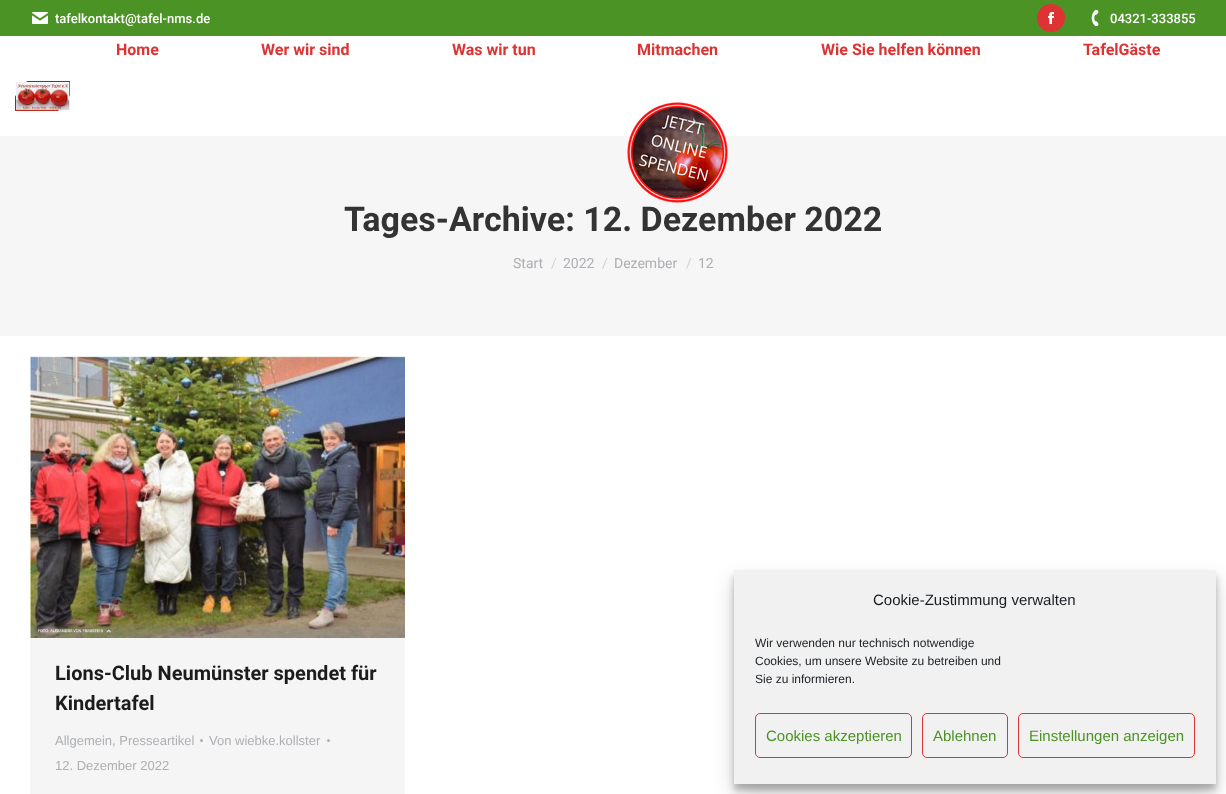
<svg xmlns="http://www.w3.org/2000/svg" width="1226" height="794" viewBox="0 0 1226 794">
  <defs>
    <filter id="blur1" x="-50%" y="-200%" width="200%" height="500%"><feGaussianBlur stdDeviation="3"/></filter>
    <filter id="blur2" x="-50%" y="-200%" width="200%" height="500%"><feGaussianBlur stdDeviation="10"/></filter>
  </defs>
  <rect width="100%" height="100%" fill="#ffffff"/>
  <rect x="0" y="0" width="1226" height="36" fill="#4c9326"/>
  <image x="32" y="12" width="16" height="12" href="img1.png"/>
  <text x="55" y="23" font-family="Roboto" font-size="13" font-weight="500" fill="#ffffff">tafelkontakt@tafel-nms.de</text>
  <circle cx="1051" cy="18" r="14" fill="#dd3333"/>
  <image x="1048" y="12" width="6" height="12" href="img2.png"/>
  <image x="1091" y="10" width="8" height="16" href="img3.png"/>
  <text x="1110" y="23" font-family="Roboto" font-size="13" font-weight="500" fill="#ffffff">04321-333855</text>
  <text x="116" y="55" font-family="Roboto" font-size="16" font-weight="bold" fill="#dd3333">Home</text>
  <text x="261" y="55" font-family="Roboto" font-size="16" font-weight="bold" fill="#dd3333">Wer wir sind</text>
  <text x="452" y="55" font-family="Roboto" font-size="16" font-weight="bold" fill="#dd3333">Was wir tun</text>
  <text x="637" y="55" font-family="Roboto" font-size="16" font-weight="bold" fill="#dd3333">Mitmachen</text>
  <text x="821" y="55" font-family="Roboto" font-size="16" font-weight="bold" fill="#dd3333">Wie Sie helfen können</text>
  <text x="1083" y="55" font-family="Roboto" font-size="16" font-weight="bold" fill="#dd3333">TafelGäste</text>
  <rect x="0" y="136" width="1226" height="200" fill="#f6f6f6"/>
  <image x="627" y="102" width="101" height="101" href="img4.png"/>
  <image x="15" y="81" width="55" height="30" href="img5.png"/>
  <text x="344" y="231" font-family="Roboto" font-size="34" font-weight="bold" fill="#333333">Tages-Archive: 12. Dezember 2022</text>
  <text x="513" y="268" font-family="Roboto" font-size="14" fill="#adafb3">Start</text>
  <text x="551" y="268" font-family="Roboto" font-size="14" fill="#d2d3d5">/</text>
  <text x="563" y="268" font-family="Roboto" font-size="14" fill="#adafb3">2022</text>
  <text x="602" y="268" font-family="Roboto" font-size="14" fill="#d2d3d5">/</text>
  <text x="614" y="268" font-family="Roboto" font-size="14" fill="#adafb3">Dezember</text>
  <text x="686" y="268" font-family="Roboto" font-size="14" fill="#d2d3d5">/</text>
  <text x="698" y="268" font-family="Roboto" font-size="14" fill="#adafb3">12</text>
  <rect x="30" y="638" width="375" height="156" fill="#f5f5f5"/>
  <image x="30" y="356" width="375" height="282" href="img6.png"/>
  <text x="55" y="680" font-family="Roboto" font-size="20" font-weight="bold" fill="#1c1c1c">Lions-Club Neumünster spendet für</text>
  <text x="55" y="710" font-family="Roboto" font-size="20" font-weight="bold" fill="#1c1c1c">Kindertafel</text>
  <text x="55" y="745" font-family="Liberation Sans" font-size="13" fill="#adafb3">Allgemein, Presseartikel</text>
  <circle cx="201.5" cy="740.5" r="1.5" fill="#b2aeae"/>
  <text x="209" y="745" font-family="Liberation Sans" font-size="13" fill="#adafb3">Von wiebke.kollster</text>
  <circle cx="328.5" cy="740.5" r="1.5" fill="#b2aeae"/>
  <text x="55" y="770" font-family="Liberation Sans" font-size="13" fill="#adafb3">12. Dezember 2022</text>
  <rect x="734" y="576" width="482" height="214" fill="#000000" fill-opacity="0.23" filter="url(#blur1)"/>
  <rect x="734" y="580" width="482" height="214" fill="#000000" fill-opacity="0.19" filter="url(#blur2)"/>
  <rect x="734" y="570" width="482" height="214" fill="#f1f1f1"/>
  <text x="873" y="605" font-family="Liberation Sans" font-size="15" fill="#191e23">Cookie-Zustimmung verwalten</text>
  <text x="755" y="647" font-family="Liberation Sans" font-size="12" fill="#191e23">Wir verwenden nur technisch notwendige</text>
  <text x="755" y="665" font-family="Liberation Sans" font-size="12" fill="#191e23">Cookies, um unsere Website zu betreiben und</text>
  <text x="755" y="683" font-family="Liberation Sans" font-size="12" fill="#191e23">Sie zu informieren.</text>
  <rect x="755.5" y="713.5" width="156" height="44" rx="4.5" fill="none" stroke="#dd3333"/>
  <text x="766" y="741" font-family="Liberation Sans" font-size="15" fill="#4c9326">Cookies akzeptieren</text>
  <rect x="922.5" y="713.5" width="85" height="44" rx="4.5" fill="none" stroke="#dd3333"/>
  <text x="933" y="741" font-family="Liberation Sans" font-size="15" fill="#4c9326">Ablehnen</text>
  <rect x="1018.5" y="713.5" width="176" height="44" rx="4.5" fill="none" stroke="#dd3333"/>
  <text x="1029" y="741" font-family="Liberation Sans" font-size="15" fill="#4c9326">Einstellungen anzeigen</text>
</svg>
